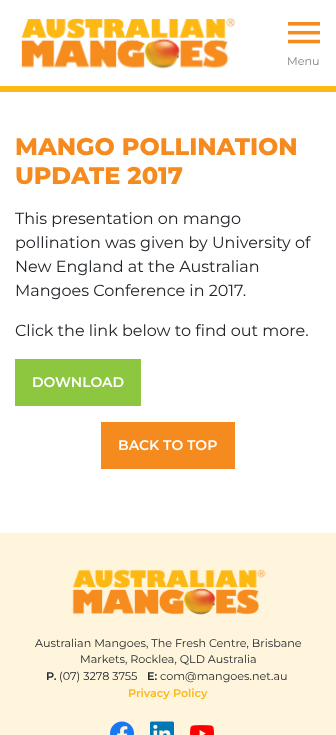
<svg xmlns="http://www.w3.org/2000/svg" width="336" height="735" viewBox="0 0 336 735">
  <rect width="100%" height="100%" fill="#ffffff"/>
  <rect x="0" y="86" width="336" height="6" fill="#fdb913"/>
  <image x="21" y="18" width="215" height="51" href="img1.png"/>
  <image x="288" y="22" width="32" height="22" href="img2.png"/>
  <text x="287" y="65" font-family="Montserrat" font-size="11.2" fill="#808080">Menu</text>
  <text x="15" y="155" font-family="Montserrat" font-size="24" font-weight="800" fill="#f58b1f">MANGO POLLINATION</text>
  <text x="15" y="184" font-family="Montserrat" font-size="24" font-weight="800" fill="#f58b1f">UPDATE 2017</text>
  <text x="15" y="224" font-family="Montserrat" font-size="16" fill="#212529">This presentation on mango</text>
  <text x="15" y="248" font-family="Montserrat" font-size="16" fill="#212529">pollination was given by University of</text>
  <text x="15" y="272" font-family="Montserrat" font-size="16" fill="#212529">New England at the Australian</text>
  <text x="15" y="296" font-family="Montserrat" font-size="16" fill="#212529">Mangoes Conference in 2017.</text>
  <text x="15" y="336" font-family="Montserrat" font-size="16" fill="#212529">Click the link below to find out more.</text>
  <rect x="15" y="359" width="126" height="47" fill="#8dc63f"/>
  <text x="32" y="387" font-family="Montserrat" font-size="14" font-weight="600" fill="#ffffff">DOWNLOAD</text>
  <rect x="101" y="422" width="134" height="47" fill="#f58b1f"/>
  <text x="118" y="450" font-family="Montserrat" font-size="14" font-weight="600" fill="#ffffff">BACK TO TOP</text>
  <rect x="0" y="533" width="336" height="202" fill="#fff4dc"/>
  <image x="72" y="569" width="194" height="46" href="img3.png"/>
  <text x="35" y="647" font-family="Montserrat" font-size="11.2" fill="#212529">Australian Mangoes, The Fresh Centre, Brisbane</text>
  <text x="80" y="663" font-family="Montserrat" font-size="11.2" fill="#212529">Markets, Rocklea, QLD Australia</text>
  <text x="46" y="680" font-family="Montserrat" font-size="11.2" font-weight="600" fill="#212529">P.</text>
  <text x="59" y="680" font-family="Montserrat" font-size="11.2" fill="#212529">(07) 3278 3755</text>
  <text x="147" y="680" font-family="Montserrat" font-size="11.2" font-weight="600" fill="#212529">E:</text>
  <text x="160" y="680" font-family="Montserrat" font-size="11.2" fill="#212529">com@mangoes.net.au</text>
  <text x="128" y="697" font-family="Montserrat" font-size="11.2" font-weight="600" fill="#fdb913">Privacy Policy</text>
  <image x="110" y="721" width="24" height="14" href="img4.png"/>
  <image x="150" y="721" width="24" height="14" href="img5.png"/>
  <image x="190" y="725" width="24" height="10" href="img6.png"/>
</svg>
